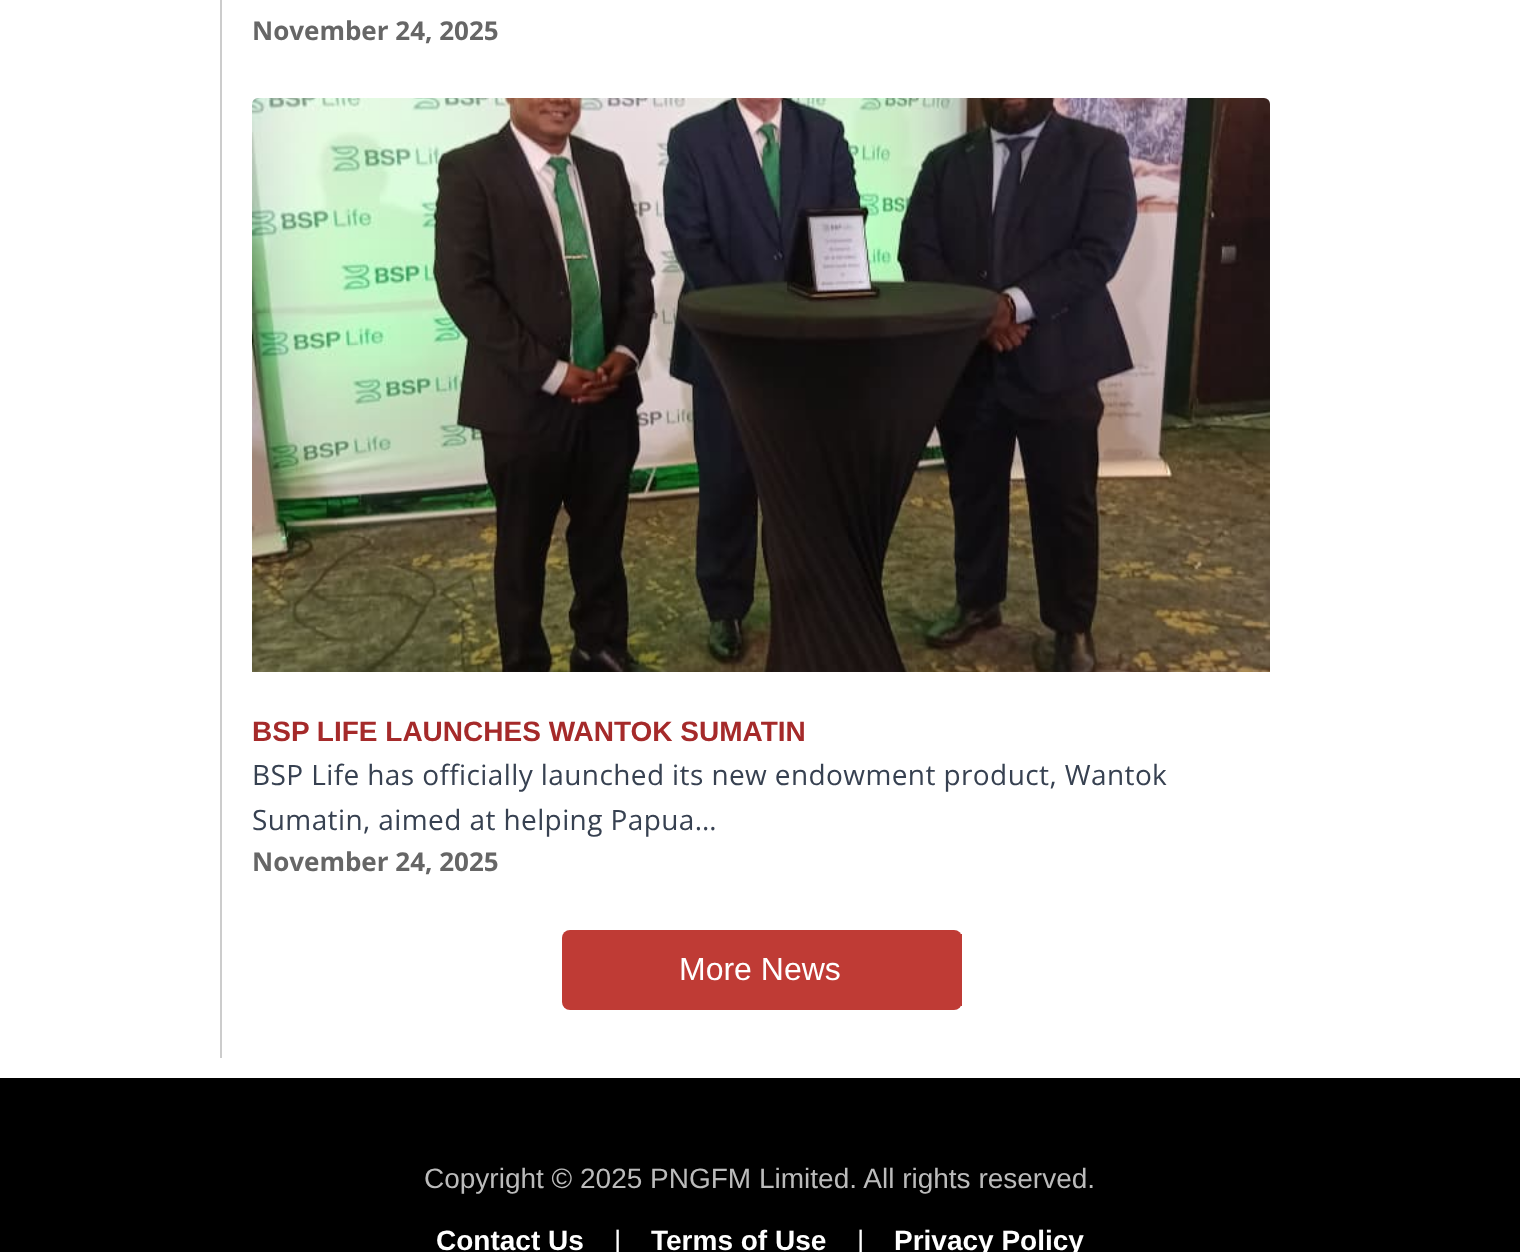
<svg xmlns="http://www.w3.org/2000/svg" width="1520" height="1252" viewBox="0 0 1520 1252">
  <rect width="100%" height="100%" fill="#ffffff"/>
  <rect x="220" y="0" width="2" height="1058" fill="#cccccc"/>
  <text x="252" y="40" font-family="Open Sans" font-size="26" font-weight="bold" fill="#666666">November 24, 2025</text>
  <image x="252" y="98" width="1018" height="574" href="img1.png"/>
  <text x="252" y="741" font-family="Liberation Sans" font-size="28" font-weight="bold" fill="#a52a2a">BSP LIFE LAUNCHES WANTOK SUMATIN</text>
  <text x="252" y="785" font-family="Open Sans" font-size="28" letter-spacing="0.4" fill="#374151">BSP Life has officially launched its new endowment product, Wantok</text>
  <text x="252" y="830" font-family="Open Sans" font-size="28" letter-spacing="0.4" fill="#374151">Sumatin, aimed at helping Papua…</text>
  <text x="252" y="871" font-family="Open Sans" font-size="26" font-weight="bold" fill="#666666">November 24, 2025</text>
  <rect x="562" y="930" width="400" height="80" rx="8" fill="#bf3b35"/>
  <rect x="961" y="934" width="1" height="72" fill="#bf3b35"/>
  <text x="679" y="980" font-family="Liberation Sans" font-size="32" fill="#ffffff">More News</text>
  <rect x="0" y="1078" width="1520" height="174" fill="#000000"/>
  <text x="424" y="1188" font-family="Liberation Sans" font-size="28" fill="#bbbbbb">Copyright © 2025 PNGFM Limited. All rights reserved.</text>
  <text x="436" y="1250" font-family="Liberation Sans" font-size="28" font-weight="bold" fill="#ffffff">Contact Us</text>
  <text x="614" y="1250" font-family="Liberation Sans" font-size="28" fill="#ffffff">|</text>
  <text x="651" y="1250" font-family="Liberation Sans" font-size="28" font-weight="bold" fill="#ffffff">Terms of Use</text>
  <text x="857" y="1250" font-family="Liberation Sans" font-size="28" fill="#ffffff">|</text>
  <text x="894" y="1250" font-family="Liberation Sans" font-size="28" font-weight="bold" fill="#ffffff">Privacy Policy</text>
</svg>
